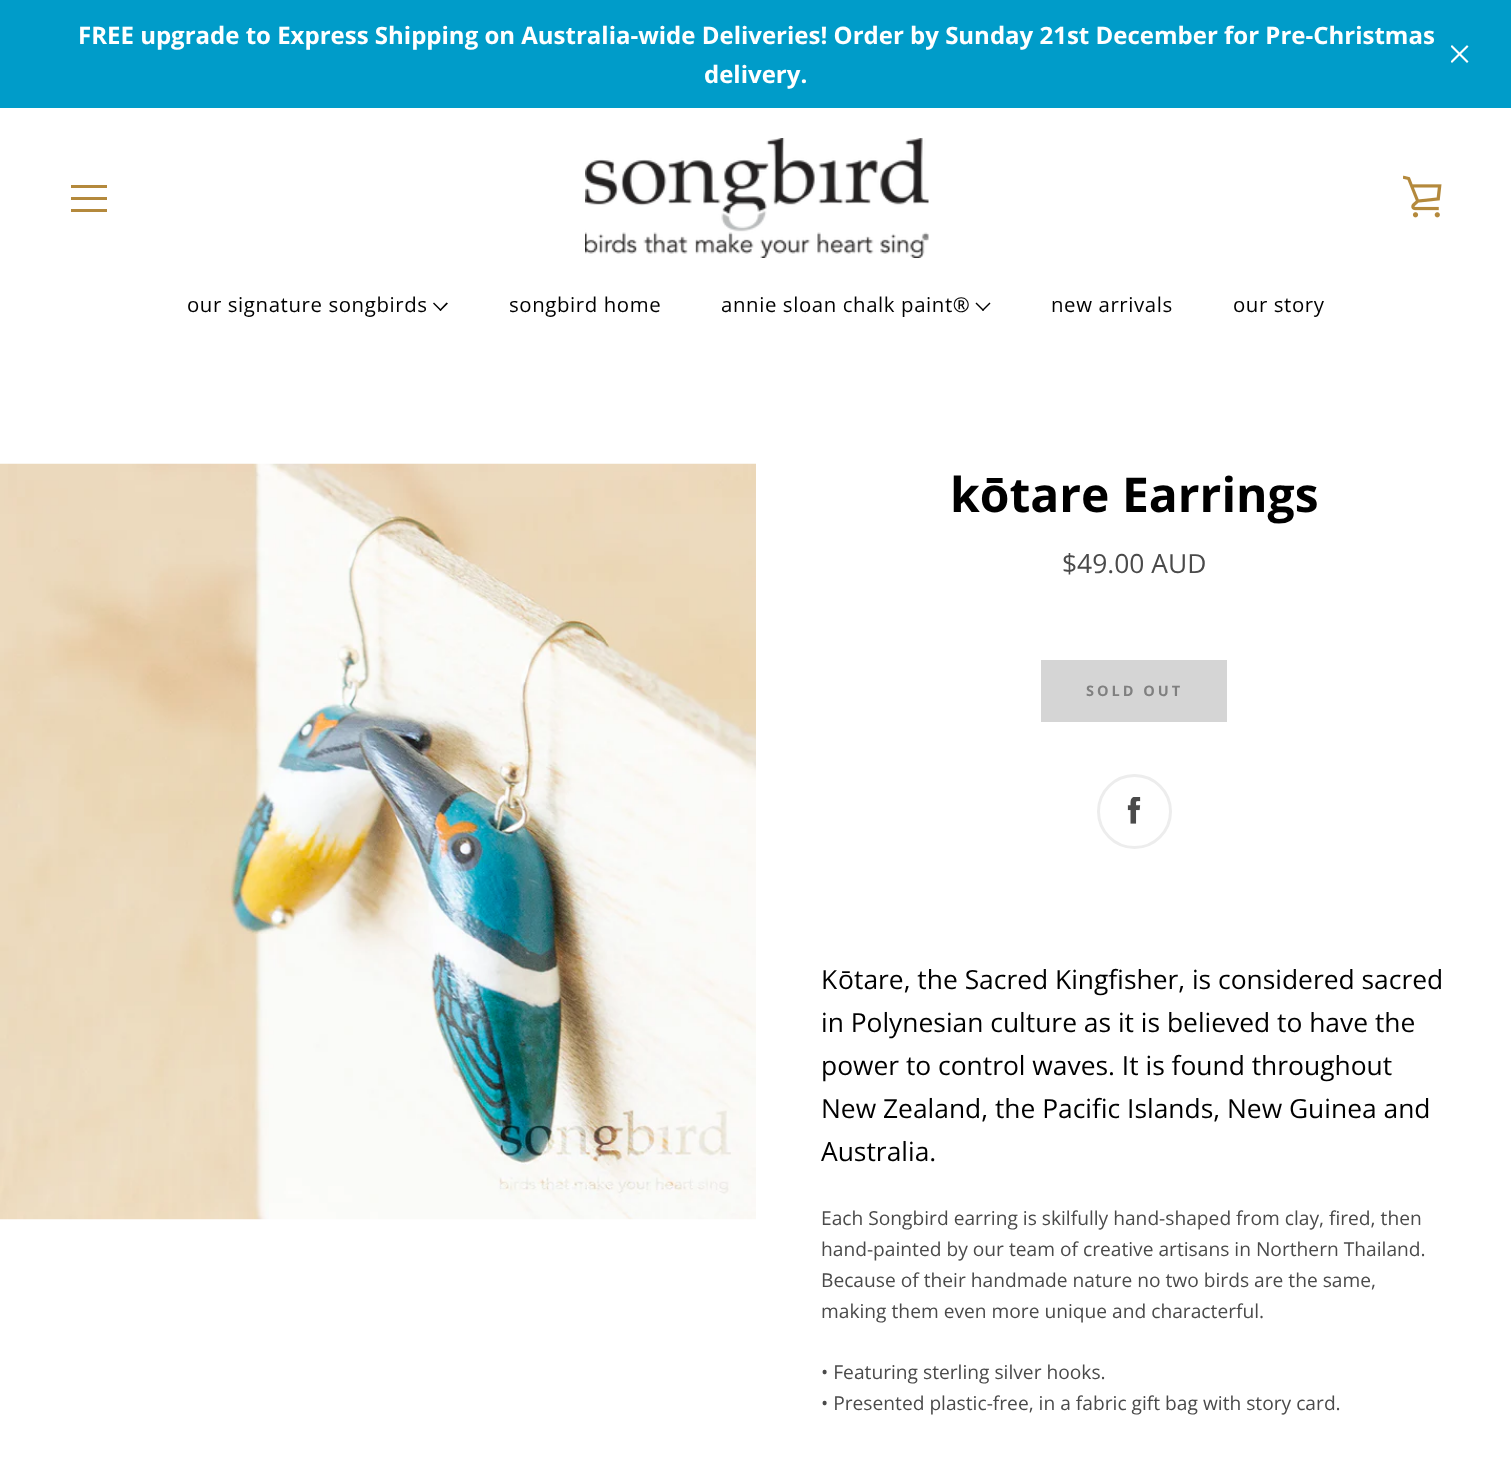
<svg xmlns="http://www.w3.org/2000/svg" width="1511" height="1465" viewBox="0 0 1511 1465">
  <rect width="100%" height="100%" fill="#ffffff"/>
  <rect x="0" y="0" width="1511" height="108" fill="#009cc9"/>
  <text x="78" y="44" font-family="Open Sans" font-size="24" font-weight="bold" fill="#ffffff">FREE upgrade to Express Shipping on Australia-wide Deliveries! Order by Sunday 21st December for Pre-Christmas</text>
  <text x="704" y="83" font-family="Open Sans" font-size="24" font-weight="bold" fill="#ffffff">delivery.</text>
  <image x="1451" y="45" width="18" height="18" href="img1.png"/>
  <rect x="71" y="185" width="36" height="3" fill="#b4893c"/>
  <rect x="71" y="197" width="36" height="3" fill="#b4893c"/>
  <rect x="71" y="209" width="36" height="3" fill="#b4893c"/>
  <image x="585" y="138" width="344" height="120" href="img2.png"/>
  <image x="1403" y="175" width="39" height="43" href="img3.png"/>
  <text x="187" y="312" font-family="Open Sans" font-size="20.4" letter-spacing="0.6" fill="#000000">our signature songbirds</text>
  <path d="M446.5 302.5L448 303.5L440.5 311L439.5 310Z" fill="#000000"/>
  <path d="M434 302.5L441.5 310L440.5 311L433 303.5Z" fill="#000000"/>
  <text x="509" y="312" font-family="Open Sans" font-size="20.4" letter-spacing="0.6" fill="#000000">songbird home</text>
  <text x="721" y="312" font-family="Open Sans" font-size="20.4" letter-spacing="0.6" fill="#000000">annie sloan chalk paint®</text>
  <path d="M989.5 302.5L990.5 303.5L983 311L982 310Z" fill="#000000"/>
  <path d="M976.5 302.5L984 310L983 311L975.5 303.5Z" fill="#000000"/>
  <text x="1051" y="312" font-family="Open Sans" font-size="20.4" letter-spacing="0.6" fill="#000000">new arrivals</text>
  <text x="1233" y="312" font-family="Open Sans" font-size="20.4" letter-spacing="0.6" fill="#000000">our story</text>
  <image x="0" y="463" width="756" height="757" href="img4.png"/>
  <text x="950" y="512" font-family="Open Sans" font-size="48" font-weight="bold" fill="#000000">kōtare Earrings</text>
  <text x="1062" y="573" font-family="Open Sans" font-size="26.4" fill="#4a4a4a">$49.00 AUD</text>
  <rect x="1041" y="660" width="186" height="62" fill="#d5d5d5"/>
  <text x="1086" y="696" font-family="Open Sans" font-size="14.5" font-weight="bold" letter-spacing="3" fill="#808080">SOLD OUT</text>
  <circle cx="1134.5" cy="811.5" r="36" fill="none" stroke="#ededed" stroke-width="3"/>
  <image x="1127" y="797" width="14" height="27" href="img5.png"/>
  <text x="821" y="989" font-family="Open Sans" font-size="26.4" fill="#000000">K</text>
  <text x="838" y="989" font-family="'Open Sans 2'" font-size="26.4" fill="#000000">ō</text>
  <text x="854" y="989" font-family="Open Sans" font-size="26.4" fill="#000000">tare, the Sacred Kingfisher, is considered sacred</text>
  <text x="821" y="1032" font-family="Open Sans" font-size="26.4" fill="#000000">in Polynesian culture as it is believed to have the</text>
  <text x="821" y="1075" font-family="Open Sans" font-size="26.4" fill="#000000">power to control waves. It is found throughout</text>
  <text x="821" y="1118" font-family="Open Sans" font-size="26.4" fill="#000000">New Zealand, the Pacific Islands, New Guinea and</text>
  <text x="821" y="1161" font-family="Open Sans" font-size="26.4" fill="#000000">Australia.</text>
  <text x="821" y="1225" font-family="Open Sans" font-size="19.2" fill="#4a4a4a">Each Songbird earring is skilfully hand-shaped from clay, fired, then</text>
  <text x="821" y="1256" font-family="Open Sans" font-size="19.2" fill="#4a4a4a">hand-painted by our team of creative artisans in Northern Thailand.</text>
  <text x="821" y="1287" font-family="Open Sans" font-size="19.2" fill="#4a4a4a">Because of their handmade nature no two birds are the same,</text>
  <text x="821" y="1318" font-family="Open Sans" font-size="19.2" fill="#4a4a4a">making them even more unique and characterful.</text>
  <text x="821" y="1379" font-family="Open Sans" font-size="19.2" fill="#4a4a4a">• Featuring sterling silver hooks.</text>
  <text x="821" y="1410" font-family="Open Sans" font-size="19.2" fill="#4a4a4a">• Presented plastic-free, in a fabric gift bag with story card.</text>
</svg>
